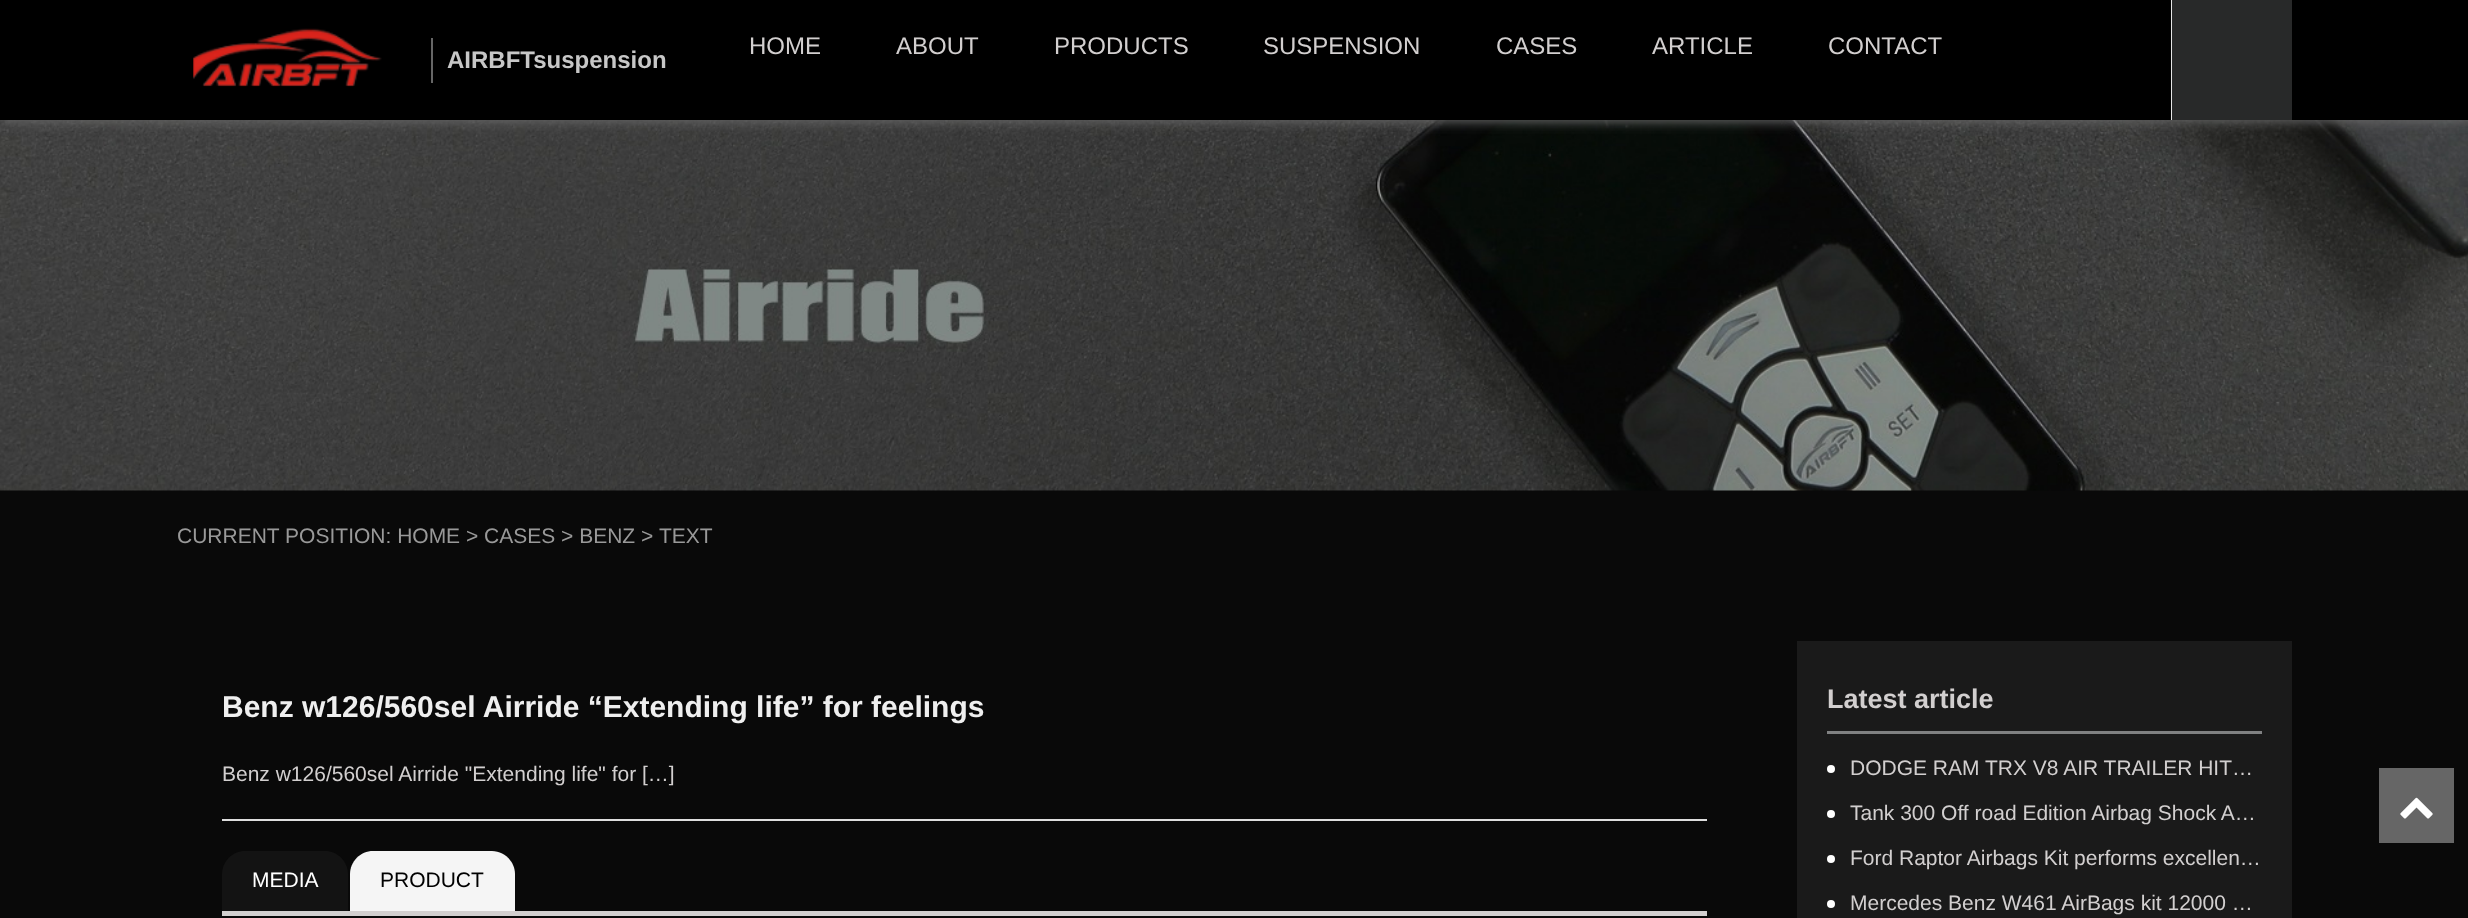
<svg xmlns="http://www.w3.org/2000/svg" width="2468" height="918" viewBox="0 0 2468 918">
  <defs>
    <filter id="blur1" x="-50%" y="-200%" width="200%" height="500%"><feGaussianBlur stdDeviation="6"/></filter>
  </defs>
  <rect width="100%" height="100%" fill="#090909"/>
  <image x="0" y="120" width="2468" height="371" href="img2.png"/>
  <rect x="2" y="2" width="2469" height="120" fill="#666666" filter="url(#blur1)"/>
  <rect x="0" y="0" width="2468" height="120" fill="#000000"/>
  <text x="749" y="54" font-family="Liberation Sans" font-size="24" fill="#d2cfcf">HOME</text>
  <text x="896" y="54" font-family="Liberation Sans" font-size="24" fill="#d2cfcf">ABOUT</text>
  <text x="1054" y="54" font-family="Liberation Sans" font-size="24" fill="#d2cfcf">PRODUCTS</text>
  <text x="1263" y="54" font-family="Liberation Sans" font-size="24" fill="#d2cfcf">SUSPENSION</text>
  <text x="1496" y="54" font-family="Liberation Sans" font-size="24" fill="#d2cfcf">CASES</text>
  <text x="1652" y="54" font-family="Liberation Sans" font-size="24" fill="#d2cfcf">ARTICLE</text>
  <text x="1828" y="54" font-family="Liberation Sans" font-size="24" fill="#d2cfcf">CONTACT</text>
  <rect x="2171" y="0" width="1" height="120" fill="#e5e5e5"/>
  <rect x="2172" y="0" width="120" height="120" fill="#282929"/>
  <image x="193" y="28" width="189" height="59" href="img1.png"/>
  <rect x="431" y="38" width="2" height="45" fill="#666666"/>
  <text x="447" y="68" font-family="Liberation Sans" font-size="24" font-weight="bold" fill="#c7c7c7">AIRBFTsuspension</text>
  <text x="177" y="543" font-family="Liberation Sans" font-size="21" fill="#999999">CURRENT POSITION: HOME &gt; CASES &gt; BENZ &gt;</text>
  <text x="659" y="543" font-family="Liberation Sans" font-size="21" fill="#999999">TEXT</text>
  <rect x="222" y="819" width="1485" height="2" fill="#dedede"/>
  <text x="222" y="717" font-family="Liberation Sans" font-size="30" font-weight="bold" fill="#efefef">Benz w126/560sel Airride “Extending life” for feelings</text>
  <text x="222" y="781" font-family="Liberation Sans" font-size="21" fill="#d2cfcf">Benz w126/560sel Airride "Extending life" for […]</text>
  <rect x="222" y="911" width="1485" height="5" fill="#d2cfcf"/>
  <path d="M245 851H325C337.5 851 348 861.5 348 874V911H222V874C222 861.5 232.5 851 245 851Z" fill="#131313"/>
  <text x="252" y="887" font-family="Liberation Sans" font-size="21" fill="#ffffff">MEDIA</text>
  <path d="M373 851H492C504.5 851 515 861.5 515 874V911H350V874C350 861.5 360.5 851 373 851Z" fill="#f5f5f5"/>
  <text x="380" y="887" font-family="Liberation Sans" font-size="21" fill="#000000">PRODUCT</text>
  <rect x="1797" y="641" width="495" height="277" fill="#1a1a1a"/>
  <rect x="1827" y="731" width="435" height="3" fill="#808182"/>
  <text x="1827" y="708" font-family="Liberation Sans" font-size="27" font-weight="bold" fill="#d2cfcf">Latest article</text>
  <circle cx="1831" cy="769" r="4" fill="#ffffff"/>
  <text x="1850" y="775" font-family="Liberation Sans" font-size="21" fill="#d2cfcf">DODGE RAM TRX V8 AIR TRAILER HIT…</text>
  <circle cx="1831" cy="814" r="4" fill="#ffffff"/>
  <text x="1850" y="820" font-family="Liberation Sans" font-size="21" fill="#d2cfcf">Tank 300 Off road Edition Airbag Shock A…</text>
  <circle cx="1831" cy="859" r="4" fill="#ffffff"/>
  <text x="1850" y="865" font-family="Liberation Sans" font-size="21" fill="#d2cfcf">Ford Raptor Airbags Kit performs excellen…</text>
  <circle cx="1831" cy="904" r="4" fill="#ffffff"/>
  <text x="1850" y="910" font-family="Liberation Sans" font-size="21" fill="#d2cfcf">Mercedes Benz W461 AirBags kit 12000 …</text>
  <rect x="2379" y="768" width="75" height="75" fill="#666666"/>
  <image x="2400" y="797" width="33" height="22" href="img3.png"/>
</svg>
